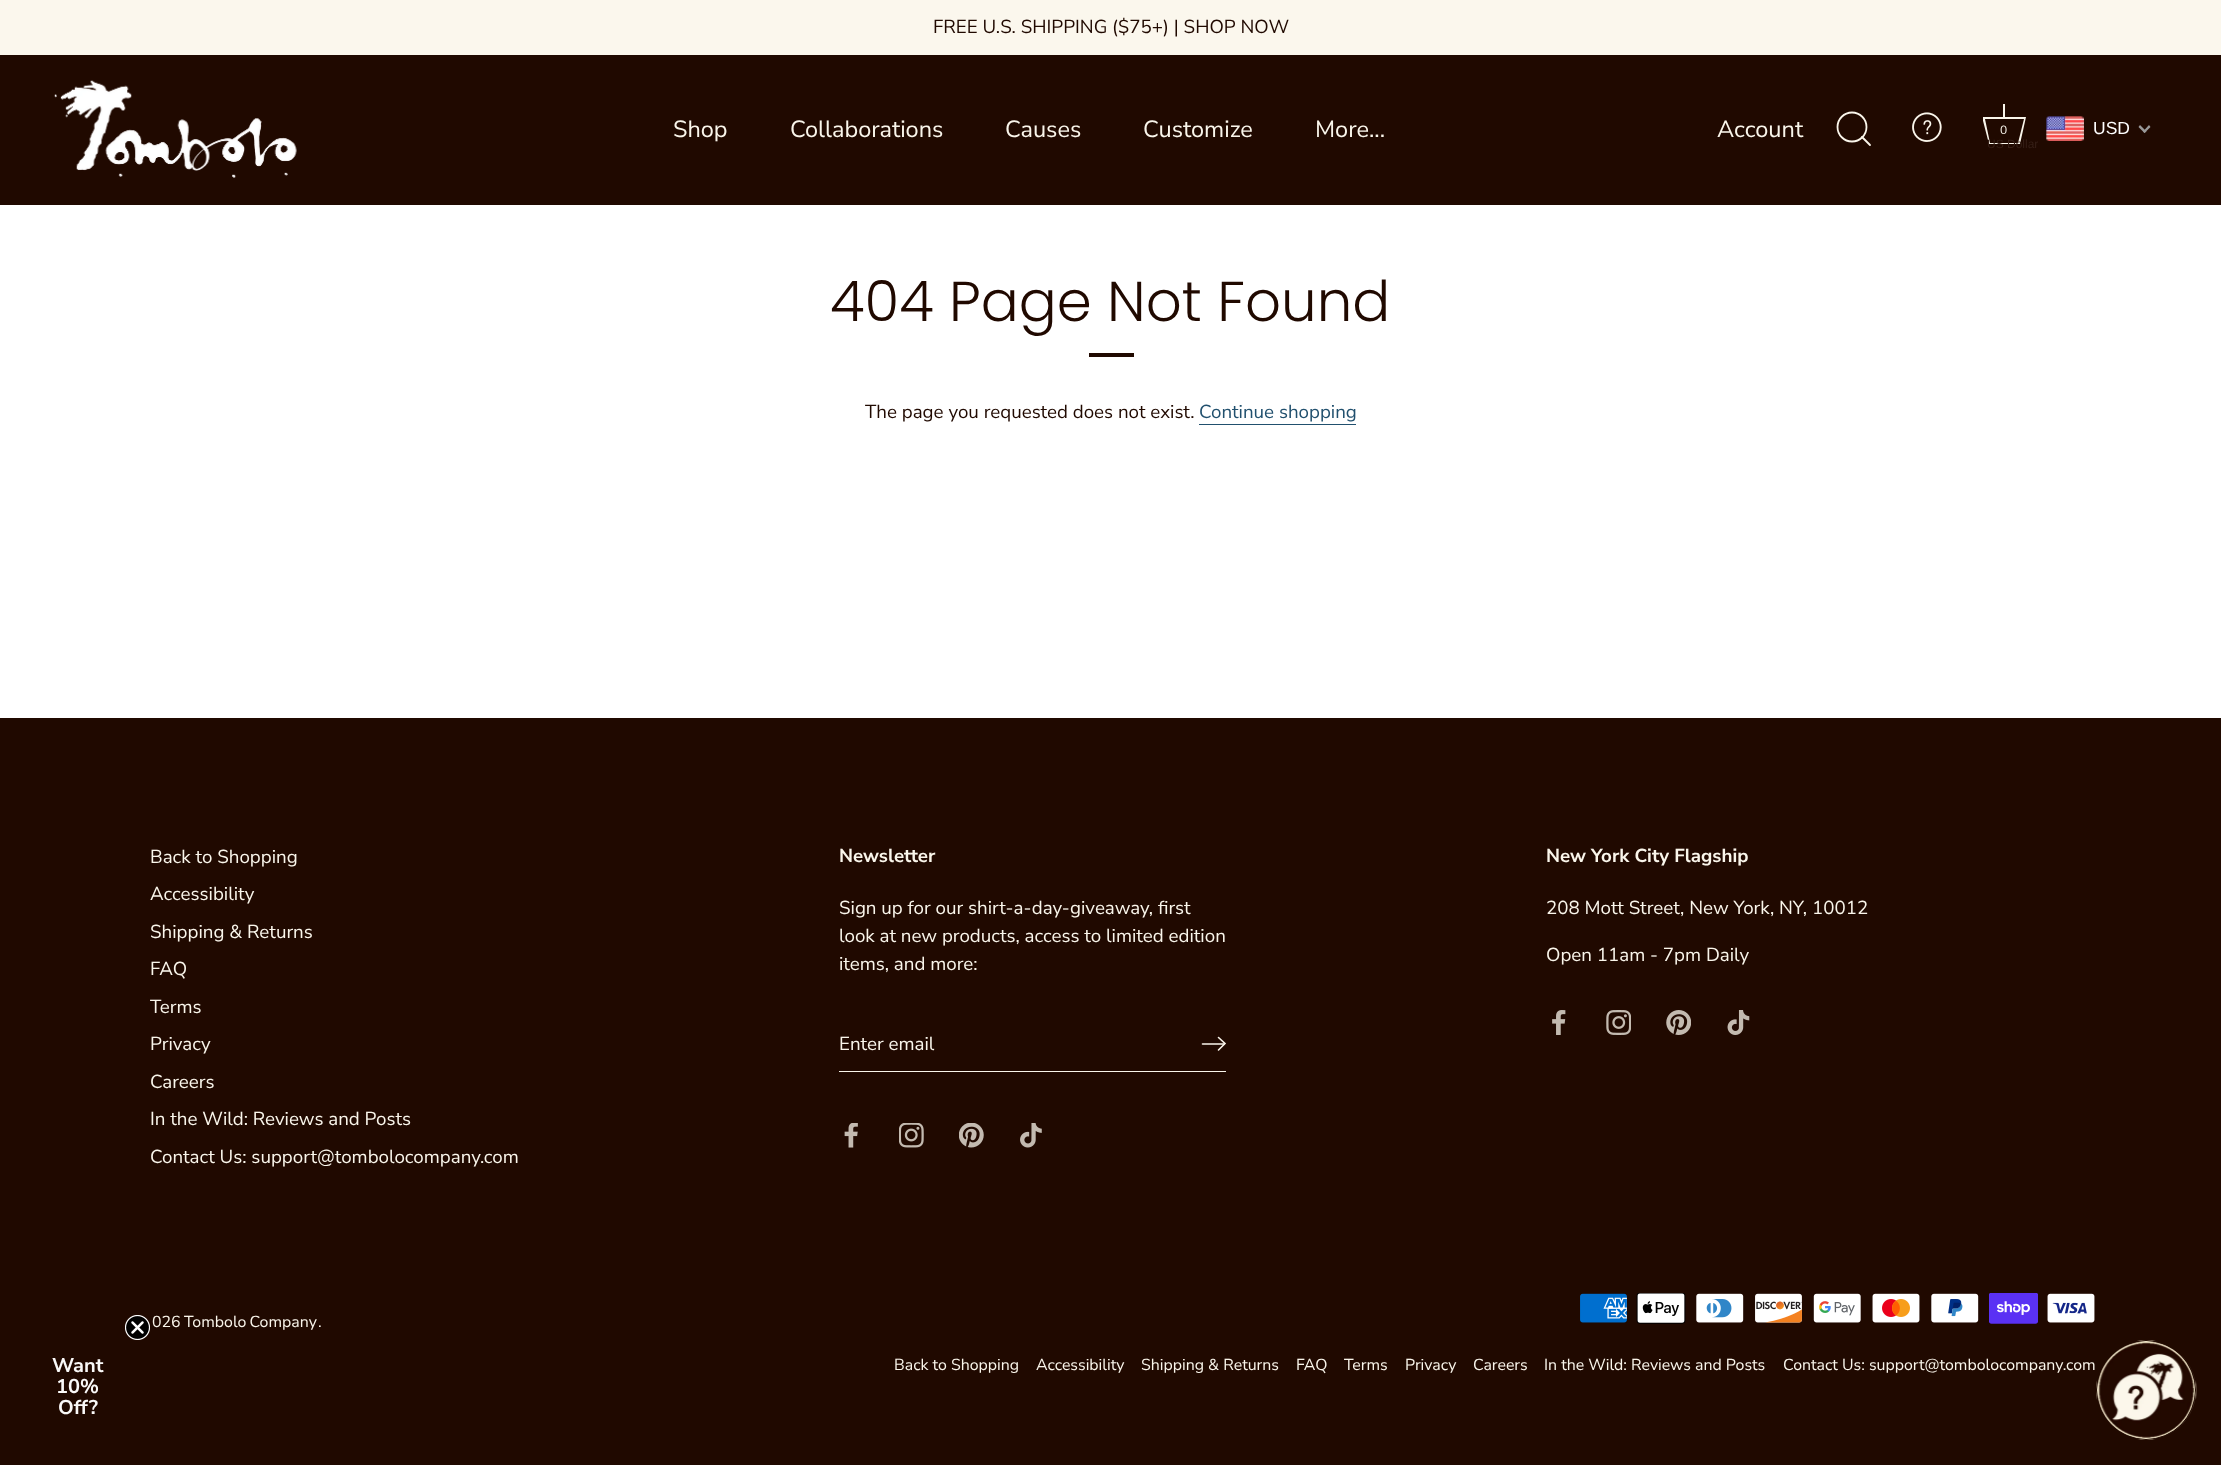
<svg xmlns="http://www.w3.org/2000/svg" width="2221" height="1465" viewBox="0 0 2221 1465">
  <defs>
    <clipPath id="clip1"><rect x="1983" y="103" width="43" height="43"/></clipPath>
  </defs>
  <rect width="100%" height="100%" fill="#ffffff"/>
  <rect x="0" y="55" width="2221" height="150" fill="#200900"/>
  <rect x="0" y="0" width="2221" height="55" fill="#fbf7ed"/>
  <text x="933" y="33" font-family="Nunito Sans" font-size="18.75" fill="#200900">FREE U.S. SHIPPING ($75+) | SHOP NOW</text>
  <image x="54" y="80" width="243" height="98" href="img1.png"/>
  <text x="673" y="137" font-family="Nunito Sans" font-size="23.5" fill="#faf6eb">Shop</text>
  <text x="790" y="137" font-family="Nunito Sans" font-size="23.5" fill="#faf6eb">Collaborations</text>
  <text x="1005" y="137" font-family="Nunito Sans" font-size="23.5" fill="#faf6eb">Causes</text>
  <text x="1143" y="137" font-family="Nunito Sans" font-size="23.5" fill="#faf6eb">Customize</text>
  <text x="1315" y="137" font-family="Nunito Sans" font-size="23.5" fill="#faf6eb">More...</text>
  <text x="1717" y="137" font-family="Nunito Sans" font-size="23.5" fill="#faf6eb">Account</text>
  <circle cx="1852" cy="127" r="14.5" fill="none" stroke="#faf6eb" stroke-width="1.8"/>
  <path d="M1870 145L1862 137" fill="none" stroke="#faf6eb" stroke-width="1.8" stroke-linecap="round" stroke-linejoin="round"/>
  <image x="1912" y="112" width="30" height="30" href="img2.png"/>
  <image x="2046" y="116" width="38" height="25" href="img3.png"/>
  <text x="2093" y="134" font-family="Liberation Sans" font-size="17.5" fill="#ffffff">USD</text>
  <path d="M2149 125L2150.5 127L2144.5 133L2143 131.5Z" fill="#999999"/>
  <path d="M2140 125L2146.5 131.5L2144.5 133L2138.5 127Z" fill="#999999"/>
  <g clip-path="url(#clip1)">
    <path d="M2024 119L2018 143H1990L1985 119H2024M2026 117H1982L1989 144H2020Z" fill="#faf6eb"/>
  </g>
  <text x="1987" y="148" font-family="Liberation Sans" font-size="12" fill="#351f16">US Dollar</text>
  <rect x="2003" y="104" width="2" height="13" fill="#faf6eb"/>
  <text x="2000" y="134" font-family="Nunito Sans" font-size="12" fill="#faf6eb">0</text>
  <text x="830" y="321" font-family="Poppins" font-size="56.25" font-weight="300" fill="#200900">404 Page Not Found</text>
  <rect x="1089" y="353" width="45" height="4" fill="#200900"/>
  <text x="865" y="418" font-family="Nunito Sans" font-size="18.75" fill="#200900">The page you requested does not exist.</text>
  <text x="1199" y="418" font-family="Nunito Sans" font-size="18.75" fill="#21506e">Continue shopping</text>
  <rect x="1199" y="424" width="157" height="1" fill="#21506e"/>
  <rect x="0" y="718" width="2221" height="747" fill="#200900"/>
  <text x="150" y="863" font-family="Nunito Sans" font-size="18.75" fill="#faf6eb">Back to Shopping</text>
  <text x="150" y="900" font-family="Nunito Sans" font-size="18.75" fill="#faf6eb">Accessibility</text>
  <text x="150" y="938" font-family="Nunito Sans" font-size="18.75" fill="#faf6eb">Shipping &amp; Returns</text>
  <text x="150" y="975" font-family="Nunito Sans" font-size="18.75" fill="#faf6eb">FAQ</text>
  <text x="150" y="1013" font-family="Nunito Sans" font-size="18.75" fill="#faf6eb">Terms</text>
  <text x="150" y="1050" font-family="Nunito Sans" font-size="18.75" fill="#faf6eb">Privacy</text>
  <text x="150" y="1088" font-family="Nunito Sans" font-size="18.75" fill="#faf6eb">Careers</text>
  <text x="150" y="1125" font-family="Nunito Sans" font-size="18.75" fill="#faf6eb">In the Wild: Reviews and Posts</text>
  <text x="150" y="1163" font-family="Nunito Sans" font-size="18.75" fill="#faf6eb">Contact Us: support@tombolocompany.com</text>
  <text x="839" y="862" font-family="Nunito Sans" font-size="18.75" font-weight="bold" fill="#faf6eb">Newsletter</text>
  <text x="839" y="914" font-family="Nunito Sans" font-size="18.75" fill="#faf6eb">Sign up for our shirt-a-day-giveaway, first</text>
  <text x="839" y="942" font-family="Nunito Sans" font-size="18.75" fill="#faf6eb">look at new products, access to limited edition</text>
  <text x="839" y="970" font-family="Nunito Sans" font-size="18.75" fill="#faf6eb">items, and more:</text>
  <rect x="839" y="1071" width="387" height="1" fill="#faf6eb"/>
  <text x="839" y="1050" font-family="Nunito Sans" font-size="18.75" fill="#faf6eb">Enter email</text>
  <path d="M1218.5 1050L1225 1043.5L1218.5 1037.5" fill="none" stroke="#faf6eb" stroke-width="1.6" stroke-linecap="round"/>
  <path d="M1224 1044H1202.5" fill="none" stroke="#faf6eb" stroke-width="1.6" stroke-linecap="round" stroke-linejoin="round"/>
  <image x="844" y="1123" width="14" height="25" href="img4.png"/>
  <image x="899" y="1123" width="25" height="25" href="img5.png"/>
  <image x="959" y="1123" width="25" height="25" href="img6.png"/>
  <image x="1020" y="1123" width="22" height="25" href="img7.png"/>
  <text x="1546" y="862" font-family="Nunito Sans" font-size="18.75" font-weight="bold" fill="#faf6eb">New York City Flagship</text>
  <text x="1546" y="914" font-family="Nunito Sans" font-size="18.75" fill="#faf6eb">208 Mott Street, New York, NY, 10012</text>
  <text x="1546" y="961" font-family="Nunito Sans" font-size="18.75" fill="#faf6eb">Open 11am - 7pm Daily</text>
  <image x="1552" y="1010" width="14" height="25" href="img8.png"/>
  <image x="1606" y="1010" width="25" height="25" href="img9.png"/>
  <image x="1666" y="1010" width="25" height="25" href="img10.png"/>
  <image x="1727" y="1010" width="23" height="25" href="img11.png"/>
  <text x="152" y="1327" font-family="Nunito Sans" font-size="15.9" fill="#faf6eb">026</text>
  <text x="184" y="1327" word-spacing="-1" font-family="Nunito Sans" font-size="15.9" fill="#faf6eb">Tombolo Company</text>
  <text x="318" y="1327" font-family="Nunito Sans" font-size="15.9" fill="#faf6eb">.</text>
  <image x="1580" y="1293" width="47" height="30" href="img12.png"/>
  <image x="1636" y="1293" width="50" height="31" href="img13.png"/>
  <image x="1696" y="1293" width="48" height="30" href="img14.png"/>
  <image x="1755" y="1293" width="47" height="30" href="img15.png"/>
  <image x="1813" y="1293" width="48" height="30" href="img16.png"/>
  <image x="1872" y="1293" width="48" height="30" href="img17.png"/>
  <image x="1931" y="1293" width="48" height="30" href="img18.png"/>
  <image x="1989" y="1293" width="49" height="31" href="img19.png"/>
  <image x="2047" y="1293" width="48" height="30" href="img20.png"/>
  <text x="894" y="1370" font-family="Nunito Sans" font-size="15.9" fill="#faf6eb">Back to Shopping</text>
  <text x="1036" y="1370" font-family="Nunito Sans" font-size="15.9" fill="#faf6eb">Accessibility</text>
  <text x="1141" y="1370" font-family="Nunito Sans" font-size="15.9" fill="#faf6eb">Shipping &amp; Returns</text>
  <text x="1296" y="1370" font-family="Nunito Sans" font-size="15.9" fill="#faf6eb">FAQ</text>
  <text x="1344" y="1370" font-family="Nunito Sans" font-size="15.9" fill="#faf6eb">Terms</text>
  <text x="1405" y="1370" font-family="Nunito Sans" font-size="15.9" fill="#faf6eb">Privacy</text>
  <text x="1473" y="1370" font-family="Nunito Sans" font-size="15.9" fill="#faf6eb">Careers</text>
  <text x="1544" y="1370" font-family="Nunito Sans" font-size="15.9" fill="#faf6eb">In the Wild: Reviews and Posts</text>
  <text x="1783" y="1370" font-family="Nunito Sans" font-size="15.9" fill="#faf6eb">Contact Us: support@tombolocompany.com</text>
  <image x="125" y="1315" width="25" height="25" href="img21.png"/>
  <text x="52" y="1372" font-family="Nunito Sans" font-size="20" font-weight="bold" fill="#faf9f8">Want</text>
  <text x="56" y="1393" font-family="Nunito Sans" font-size="20" font-weight="bold" fill="#faf9f8">10%</text>
  <text x="58" y="1414" font-family="Nunito Sans" font-size="20" font-weight="bold" fill="#faf9f8">Off?</text>
  <image x="2096" y="1340" width="101" height="100" href="img22.png"/>
  <circle cx="2146" cy="1390" r="49.5" fill="none" stroke="#200900"/>
</svg>
